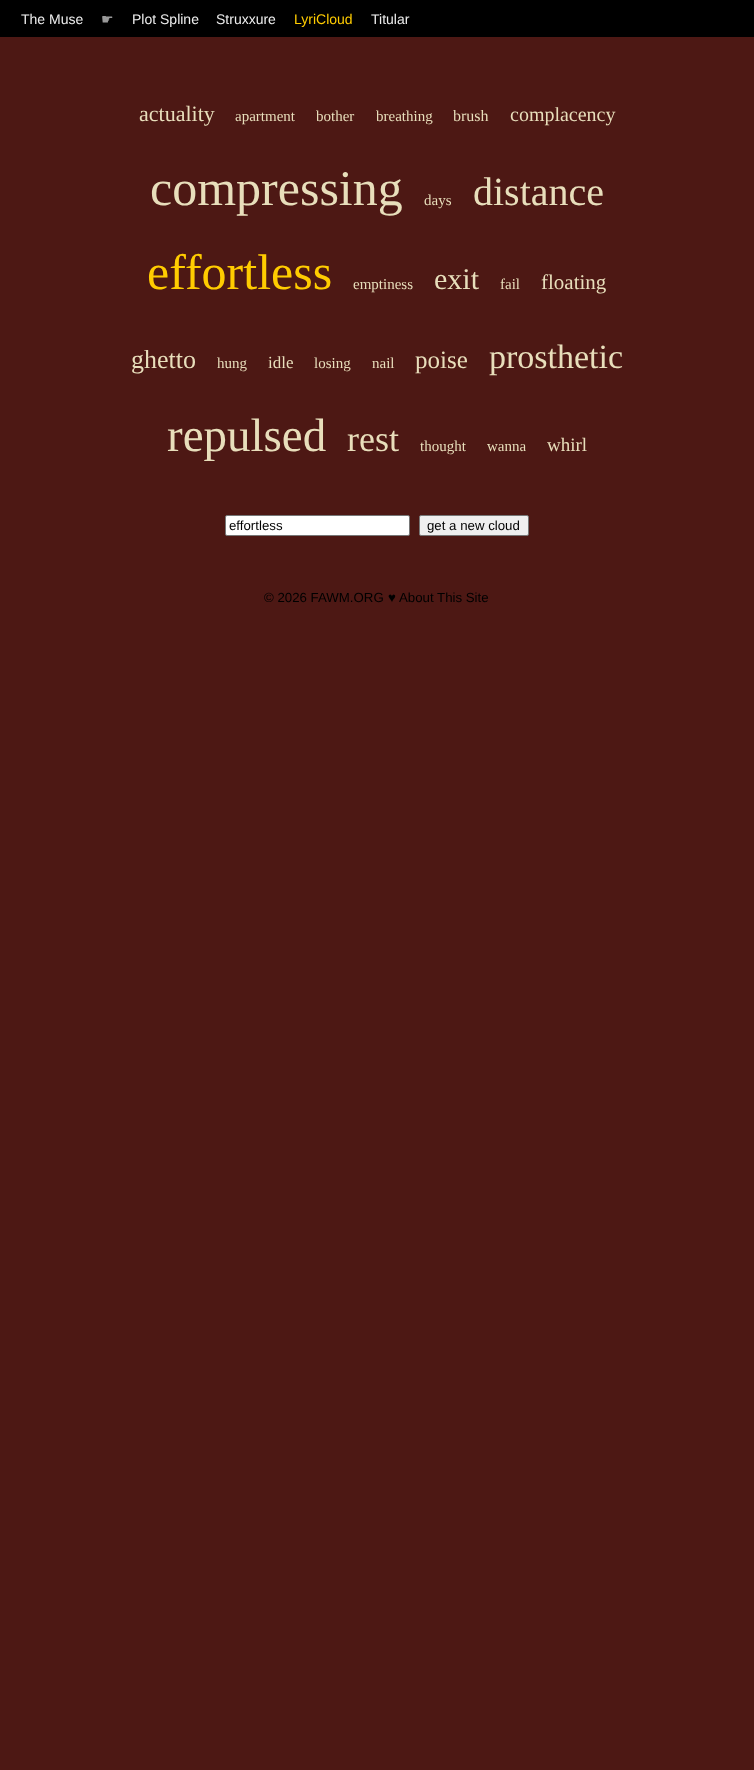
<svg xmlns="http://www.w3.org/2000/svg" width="754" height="1770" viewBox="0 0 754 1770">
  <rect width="100%" height="100%" fill="#4d1814"/>
  <rect x="0" y="0" width="754" height="37" fill="#000000"/>
  <text x="21" y="24" font-family="Liberation Sans" font-size="14" fill="#eeeeee">The Muse</text>
  <text x="101" y="24" font-family="DejaVu Sans" font-size="14" fill="#999999">☛</text>
  <text x="132" y="24" font-family="Liberation Sans" font-size="14" fill="#eeeeee">Plot Spline</text>
  <text x="216" y="24" font-family="Liberation Sans" font-size="14" fill="#eeeeee">Struxxure</text>
  <text x="294" y="24" font-family="Liberation Sans" font-size="14" fill="#ffcc00">LyriCloud</text>
  <text x="371" y="24" font-family="Liberation Sans" font-size="14" fill="#eeeeee">Titular</text>
  <text x="139" y="121" font-family="Liberation Serif" font-size="22" fill="#e8debb">actuality</text>
  <text x="235" y="121" font-family="Liberation Serif" font-size="15" fill="#e8debb">apartment</text>
  <text x="316" y="121" font-family="Liberation Serif" font-size="15" fill="#e8debb">bother</text>
  <text x="376" y="121" font-family="Liberation Serif" font-size="15" fill="#e8debb">breathing</text>
  <text x="453" y="121" font-family="Liberation Serif" font-size="16" fill="#e8debb">brush</text>
  <text x="510" y="121" font-family="Liberation Serif" font-size="20" fill="#e8debb">complacency</text>
  <text x="150" y="205" font-family="Liberation Serif" font-size="50" fill="#e8debb">compressing</text>
  <text x="424" y="205" font-family="Liberation Serif" font-size="15" fill="#e8debb">days</text>
  <text x="473" y="205" font-family="Liberation Serif" font-size="40" fill="#e8debb">distance</text>
  <text x="147" y="289" font-family="Liberation Serif" font-size="50" fill="#ffcc00">effortless</text>
  <text x="353" y="289" font-family="Liberation Serif" font-size="15" fill="#e8debb">emptiness</text>
  <text x="434" y="289" font-family="Liberation Serif" font-size="30" fill="#e8debb">exit</text>
  <text x="500" y="289" font-family="Liberation Serif" font-size="15" fill="#e8debb">fail</text>
  <text x="541" y="289" font-family="Liberation Serif" font-size="21" fill="#e8debb">floating</text>
  <text x="131" y="368" font-family="Liberation Serif" font-size="26" fill="#e8debb">ghetto</text>
  <text x="217" y="368" font-family="Liberation Serif" font-size="15" fill="#e8debb">hung</text>
  <text x="268" y="368" font-family="Liberation Serif" font-size="17" fill="#e8debb">idle</text>
  <text x="314" y="368" font-family="Liberation Serif" font-size="15" fill="#e8debb">losing</text>
  <text x="372" y="368" font-family="Liberation Serif" font-size="15" fill="#e8debb">nail</text>
  <text x="415" y="368" font-family="Liberation Serif" font-size="25" fill="#e8debb">poise</text>
  <text x="489" y="368" font-family="Liberation Serif" font-size="34" fill="#e8debb">prosthetic</text>
  <text x="167" y="451" font-family="Liberation Serif" font-size="47" fill="#e8debb">repulsed</text>
  <text x="347" y="451" font-family="Liberation Serif" font-size="36" fill="#e8debb">rest</text>
  <text x="420" y="451" font-family="Liberation Serif" font-size="15" fill="#e8debb">thought</text>
  <text x="487" y="451" font-family="Liberation Serif" font-size="15" fill="#e8debb">wanna</text>
  <text x="547" y="451" font-family="Liberation Serif" font-size="19" fill="#e8debb">whirl</text>
  <rect x="225.5" y="515.5" width="184" height="20" rx="1.5" fill="#ffffff" stroke="#767676"/>
  <text x="229" y="530" font-family="Liberation Sans" font-size="13.25" fill="#000000">effortless</text>
  <rect x="419.5" y="515.5" width="109" height="20" rx="1.5" fill="#efefef" stroke="#767676"/>
  <text x="427" y="530" font-family="Liberation Sans" font-size="13.25" fill="#000000">get a new cloud</text>
  <text x="264" y="602" font-family="Liberation Sans" font-size="13.25" fill="#000000">© 2026 FAWM.ORG</text>
  <text x="388" y="602" font-family="Liberation Sans" font-size="13.25" fill="#000000">♥</text>
  <text x="399" y="602" font-family="Liberation Sans" font-size="13.25" fill="#000000">About This Site</text>
</svg>
